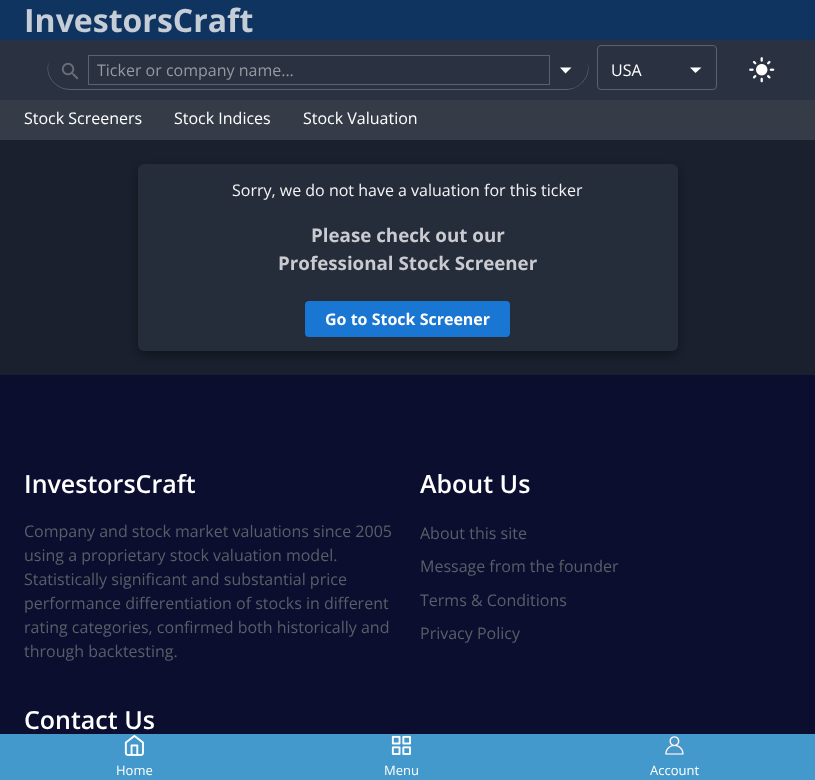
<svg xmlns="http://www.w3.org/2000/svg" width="815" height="780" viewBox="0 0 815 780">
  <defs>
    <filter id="blur1" x="-50%" y="-200%" width="200%" height="500%"><feGaussianBlur stdDeviation="6"/></filter>
  </defs>
  <rect width="100%" height="100%" fill="#1a202e"/>
  <rect x="0" y="0" width="815" height="40" fill="#0f3460"/>
  <text x="24" y="32" font-family="Open Sans" font-size="32" font-weight="bold" fill="#c5cdd7">InvestorsCraft</text>
  <rect x="0" y="40" width="815" height="60" fill="#2a3242"/>
  <image x="61" y="62" width="18" height="18" href="img1.png"/>
  <rect x="88.5" y="55.5" width="461" height="29" fill="none" stroke="#5a6175"/>
  <text x="97" y="76" font-family="Open Sans" font-size="16" fill="#9599a1">Ticker or company name...</text>
  <path d="M560 67.5L565.5 73.5L571.5 67.5Z" fill="#ffffff"/>
  <path d="M70 90H566C580 90 593 75 587 62C590 70 586 80 579 85C575 88 571 89 566 89H70C55 89 45 75 49 62C43 75 56 90 70 90Z" fill="#5b616d"/>
  <path d="M690 67.5L695.5 73L701.5 67.5Z" fill="#ffffff"/>
  <rect x="597.5" y="45.5" width="119" height="44" rx="3.5" fill="none" stroke="#5b616d"/>
  <text x="611" y="76" font-family="Open Sans" font-size="16" fill="#ffffff">USA</text>
  <image x="749" y="57" width="26" height="26" href="img2.png"/>
  <rect x="0" y="100" width="815" height="40" fill="#353c48"/>
  <text x="24" y="124" font-family="Open Sans" font-size="16" fill="#ffffff">Stock Screeners</text>
  <text x="174" y="124" font-family="Open Sans" font-size="16" fill="#ffffff">Stock Indices</text>
  <text x="303" y="124" font-family="Open Sans" font-size="16" fill="#ffffff">Stock Valuation</text>
  <rect x="138" y="168" width="540" height="187" rx="6" fill="#000000" fill-opacity="0.4" filter="url(#blur1)"/>
  <rect x="138" y="164" width="540" height="187" rx="6" fill="#262d3a"/>
  <text x="232" y="196" font-family="Open Sans" font-size="16" fill="#f3f3f5">Sorry, we do not have a valuation for this ticker</text>
  <text x="311" y="242" font-family="Open Sans" font-size="18.75" font-weight="bold" fill="#cacbd0">Please check out our</text>
  <text x="278" y="270" font-family="Open Sans" font-size="18.75" font-weight="bold" fill="#cacbd0">Professional Stock Screener</text>
  <rect x="305" y="301" width="205" height="36" rx="4" fill="#1976d2"/>
  <text x="325" y="325" font-family="Open Sans" font-size="16" font-weight="bold" fill="#ffffff">Go to Stock Screener</text>
  <rect x="0" y="375" width="815" height="359" fill="#0c0e30"/>
  <text x="24" y="493" font-family="Open Sans" font-size="25" font-weight="600" fill="#ffffff">InvestorsCraft</text>
  <text x="24" y="537" font-family="Open Sans" font-size="16" fill="#5a5e67">Company and stock market valuations since 2005</text>
  <text x="24" y="561" font-family="Open Sans" font-size="16" fill="#5a5e67">using a proprietary stock valuation model.</text>
  <text x="24" y="585" font-family="Open Sans" font-size="16" fill="#5a5e67">Statistically significant and substantial price</text>
  <text x="24" y="609" font-family="Open Sans" font-size="16" fill="#5a5e67">performance differentiation of stocks in different</text>
  <text x="24" y="633" font-family="Open Sans" font-size="16" fill="#5a5e67">rating categories, confirmed both historically and</text>
  <text x="24" y="657" font-family="Open Sans" font-size="16" fill="#5a5e67">through backtesting.</text>
  <text x="420" y="493" font-family="Open Sans" font-size="25" font-weight="600" fill="#ffffff">About Us</text>
  <text x="420" y="539" font-family="Open Sans" font-size="16" fill="#5a5e67">About this site</text>
  <text x="420" y="572" font-family="Open Sans" font-size="16" fill="#5a5e67">Message from the founder</text>
  <text x="420" y="606" font-family="Open Sans" font-size="16" fill="#5a5e67">Terms &amp; Conditions</text>
  <text x="420" y="639" font-family="Open Sans" font-size="16" fill="#5a5e67">Privacy Policy</text>
  <text x="24" y="729" font-family="Open Sans" font-size="25" font-weight="600" fill="#ffffff">Contact Us</text>
  <rect x="0" y="734" width="815" height="46" fill="#4499cc"/>
  <image x="124" y="735" width="20" height="21" href="img3.png"/>
  <text x="116" y="775" font-family="Open Sans" font-size="13" fill="#ffffff">Home</text>
  <image x="391" y="735" width="20" height="20" href="img4.png"/>
  <text x="384" y="775" font-family="Open Sans" font-size="13" fill="#ffffff">Menu</text>
  <image x="665" y="736" width="19" height="19" href="img5.png"/>
  <text x="650" y="775" font-family="Open Sans" font-size="13" fill="#ffffff">Account</text>
</svg>
